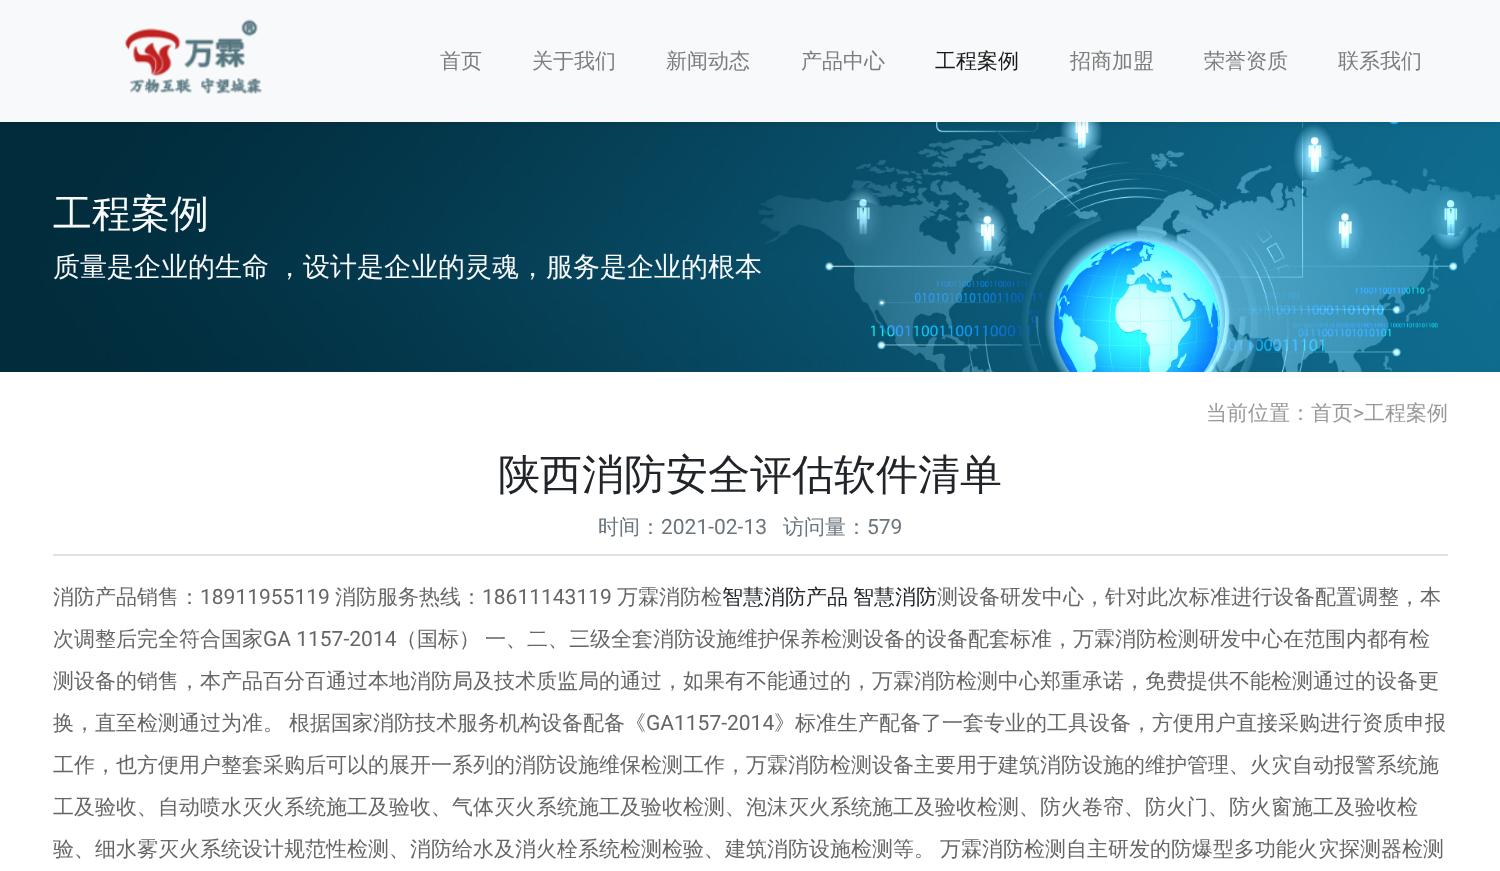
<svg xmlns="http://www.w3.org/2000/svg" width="1500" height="871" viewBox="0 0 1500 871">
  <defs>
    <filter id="blur1" x="-50%" y="-200%" width="200%" height="500%"><feGaussianBlur stdDeviation="2.5"/></filter>
  </defs>
  <rect width="100%" height="100%" fill="#ffffff"/>
  <image x="0" y="122" width="1500" height="250" href="img2.png"/>
  <rect x="0" y="3" width="1500" height="122" fill="#000000" fill-opacity="0.07" filter="url(#blur1)"/>
  <rect x="0" y="0" width="1500" height="122" fill="#f8f9fa"/>
  <image x="125" y="19" width="137" height="75" href="img1.png"/>
  <text x="440" y="68" font-family="WenQuanYi Zen Hei" font-size="21" font-weight="500" fill="#7c7d7d">首页</text>
  <text x="532" y="68" font-family="WenQuanYi Zen Hei" font-size="21" font-weight="500" fill="#7c7d7d">关于我们</text>
  <text x="666" y="68" font-family="WenQuanYi Zen Hei" font-size="21" font-weight="500" fill="#7c7d7d">新闻动态</text>
  <text x="801" y="68" font-family="WenQuanYi Zen Hei" font-size="21" font-weight="500" fill="#7c7d7d">产品中心</text>
  <text x="935" y="68" font-family="WenQuanYi Zen Hei" font-size="21" font-weight="500" fill="#191919">工程案例</text>
  <text x="1070" y="68" font-family="WenQuanYi Zen Hei" font-size="21" font-weight="500" fill="#7c7d7d">招商加盟</text>
  <text x="1204" y="68" font-family="WenQuanYi Zen Hei" font-size="21" font-weight="500" fill="#7c7d7d">荣誉资质</text>
  <text x="1338" y="68" font-family="WenQuanYi Zen Hei" font-size="21" font-weight="500" fill="#7c7d7d">联系我们</text>
  <text x="53" y="227" font-family="WenQuanYi Zen Hei" font-size="39" font-weight="500" fill="#f8f9fa">工程案例</text>
  <text x="53" y="276" word-spacing="-1" font-family="WenQuanYi Zen Hei" font-size="27" font-weight="500" fill="#f8f9fa">质量是企业的生命 ，设计是企业的灵魂，服务是企业的根本</text>
  <text x="1206" y="420" font-family="WenQuanYi Zen Hei" font-size="21" font-weight="500" fill="#999999">当前位置：首页</text>
  <text x="1353" y="420" font-family="Roboto" font-size="21" fill="#999999">&gt;</text>
  <text x="1364" y="420" font-family="WenQuanYi Zen Hei" font-size="21" font-weight="500" fill="#999999">工程案例</text>
  <text x="498" y="489" font-family="WenQuanYi Zen Hei" font-size="42" font-weight="500" fill="#212529">陕西消防安全评估软件清单</text>
  <rect x="53" y="554" width="1395" height="2" fill="#dee2e6"/>
  <text x="598" y="534" font-family="WenQuanYi Zen Hei" font-size="21" font-weight="500" fill="#6c757d">时间：</text>
  <text x="661" y="534" font-family="Roboto" font-size="21" fill="#6c757d">2021-02-13</text>
  <text x="783" y="534" font-family="WenQuanYi Zen Hei" font-size="21" font-weight="500" fill="#6c757d">访问量：</text>
  <text x="867" y="534" font-family="Roboto" font-size="21" fill="#6c757d">579</text>
  <text x="53" y="604" font-family="WenQuanYi Zen Hei" font-size="21" font-weight="500" fill="#666666">消防产品销售：</text>
  <text x="200" y="604" font-family="Roboto" font-size="21" fill="#666666">18911955119</text>
  <text x="335" y="604" font-family="WenQuanYi Zen Hei" font-size="21" font-weight="500" fill="#666666">消防服务热线：</text>
  <text x="482" y="604" font-family="Roboto" font-size="21" fill="#666666">18611143119</text>
  <text x="617" y="604" font-family="WenQuanYi Zen Hei" font-size="21" font-weight="500" fill="#666666">万霖消防检</text>
  <text x="722" y="604" font-family="WenQuanYi Zen Hei" font-size="21" font-weight="500" fill="#212529">智慧消防产品</text>
  <text x="853" y="604" font-family="WenQuanYi Zen Hei" font-size="21" font-weight="500" fill="#212529">智慧消防</text>
  <text x="937" y="604" font-family="WenQuanYi Zen Hei" font-size="21" font-weight="500" fill="#666666">测设备研发中心，针对此次标准进行设备配置调整，本</text>
  <text x="53" y="646" font-family="WenQuanYi Zen Hei" font-size="21" font-weight="500" fill="#666666">次调整后完全符合国家</text>
  <text x="263" y="646" font-family="Roboto" font-size="21" fill="#666666">GA 1157-2014</text>
  <text x="396" y="646" font-family="WenQuanYi Zen Hei" font-size="21" font-weight="500" fill="#666666">（国标）</text>
  <text x="485" y="646" font-family="WenQuanYi Zen Hei" font-size="21" font-weight="500" fill="#666666">一、二、三级全套消防设施维护保养检测设备的设备配套标准，万霖消防检测研发中心在范围内都有检</text>
  <text x="53" y="688" font-family="WenQuanYi Zen Hei" font-size="21" font-weight="500" fill="#666666">测设备的销售，本产品百分百通过本地消防局及技术质监局的通过，如果有不能通过的，万霖消防检测中心郑重承诺，免费提供不能检测通过的设备更</text>
  <text x="53" y="730" font-family="WenQuanYi Zen Hei" font-size="21" font-weight="500" fill="#666666">换，直至检测通过为准。</text>
  <text x="289" y="730" font-family="WenQuanYi Zen Hei" font-size="21" font-weight="500" fill="#666666">根据国家消防技术服务机构设备配备《</text>
  <text x="646" y="730" font-family="Roboto" font-size="21" fill="#666666">GA1157-2014</text>
  <text x="774" y="730" font-family="WenQuanYi Zen Hei" font-size="21" font-weight="500" fill="#666666">》标准生产配备了一套专业的工具设备，方便用户直接采购进行资质申报</text>
  <text x="53" y="772" font-family="WenQuanYi Zen Hei" font-size="21" font-weight="500" fill="#666666">工作，也方便用户整套采购后可以的展开一系列的消防设施维保检测工作，万霖消防检测设备主要用于建筑消防设施的维护管理、火灾自动报警系统施</text>
  <text x="53" y="814" font-family="WenQuanYi Zen Hei" font-size="21" font-weight="500" fill="#666666">工及验收、自动喷水灭火系统施工及验收、气体灭火系统施工及验收检测、泡沫灭火系统施工及验收检测、防火卷帘、防火门、防火窗施工及验收检</text>
  <text x="53" y="856" font-family="WenQuanYi Zen Hei" font-size="21" font-weight="500" fill="#666666">验、细水雾灭火系统设计规范性检测、消防给水及消火栓系统检测检验、建筑消防设施检测等。</text>
  <text x="940" y="856" font-family="WenQuanYi Zen Hei" font-size="21" font-weight="500" fill="#666666">万霖消防检测自主研发的防爆型多功能火灾探测器检测</text>
</svg>
